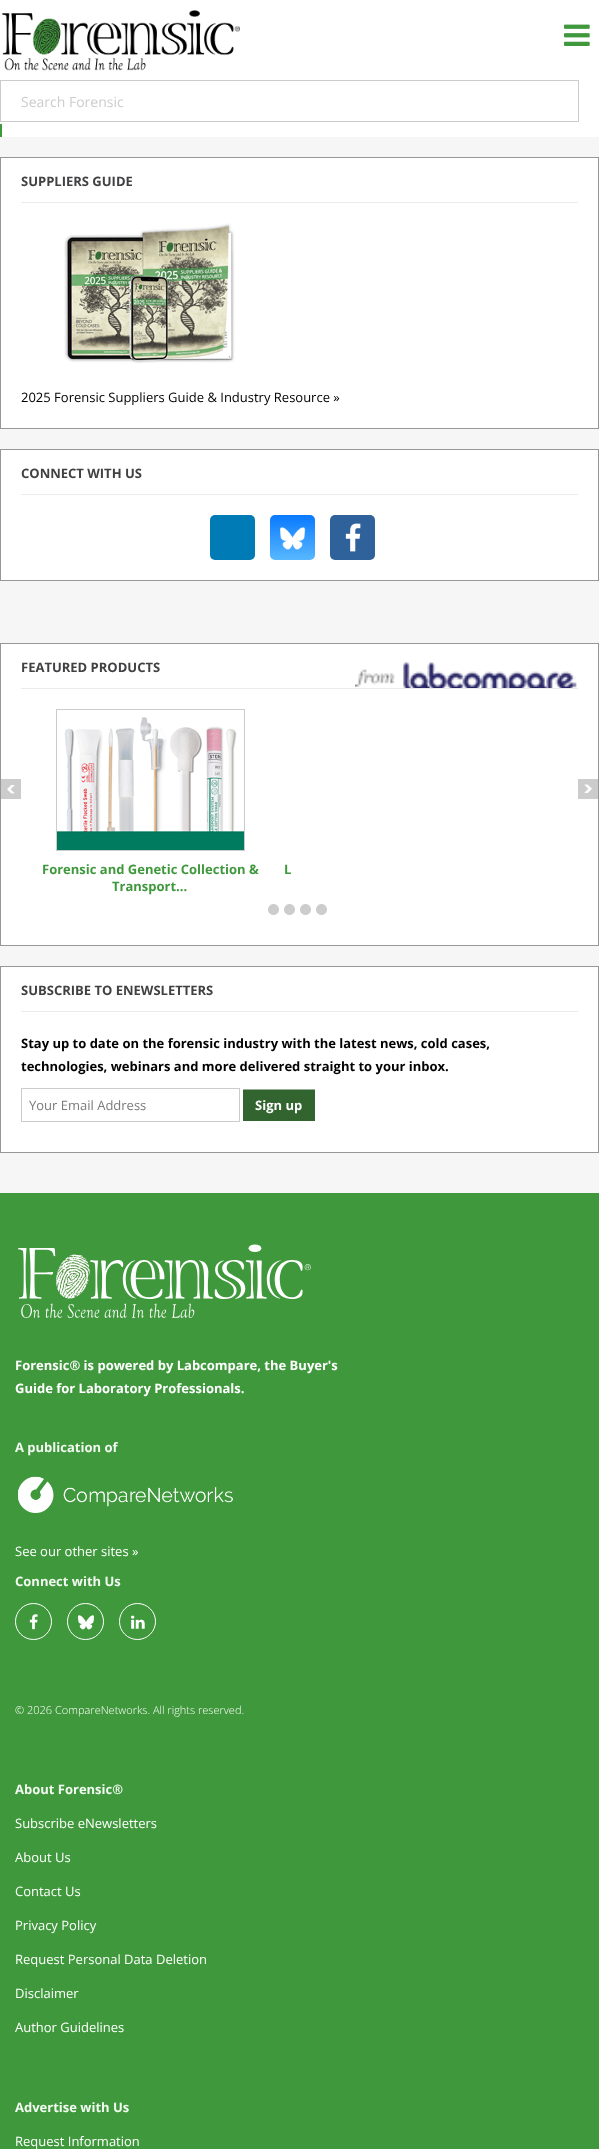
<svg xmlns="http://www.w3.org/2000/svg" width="599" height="2149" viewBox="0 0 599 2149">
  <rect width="100%" height="100%" fill="#f6f6f6"/>
  <rect x="0" y="0" width="599" height="137" fill="#ffffff"/>
  <image x="0" y="123" width="2" height="14" href="img1.png"/>
  <image x="2" y="10" width="238" height="61" href="img2.png"/>
  <image x="564" y="24" width="26" height="22" href="img3.png"/>
  <rect x="0.5" y="80.5" width="578" height="41" fill="none" stroke="#cccccc"/>
  <text x="21" y="107" font-family="Open Sans" font-size="14" fill="#cccccc">Search Forensic</text>
  <rect x="0.5" y="157.5" width="598" height="271" fill="#ffffff" stroke="#979797"/>
  <rect x="21" y="202" width="557" height="1" fill="#e8ecef"/>
  <text x="21" y="186" font-family="Open Sans" font-size="13" font-weight="bold" fill="#414042">SUPPLIERS GUIDE</text>
  <image x="64" y="223" width="171" height="140" href="img4.png"/>
  <text x="21" y="402" font-family="Open Sans" font-size="13" fill="#000000">2025 Forensic Suppliers Guide &amp; Industry Resource »</text>
  <rect x="0.5" y="449.5" width="598" height="131" fill="#ffffff" stroke="#979797"/>
  <rect x="21" y="494" width="557" height="1" fill="#e8ecef"/>
  <text x="21" y="478" font-family="Open Sans" font-size="13" font-weight="bold" fill="#414042">CONNECT WITH US</text>
  <rect x="210" y="515" width="45" height="45" rx="5" fill="#007bb6"/>
  <image x="270" y="515" width="45" height="45" href="img5.png"/>
  <rect x="330" y="515" width="45" height="45" rx="5" fill="#2f629b"/>
  <image x="345" y="523" width="16" height="29" href="img6.png"/>
  <rect x="0.5" y="643.5" width="598" height="302" fill="#ffffff" stroke="#979797"/>
  <image x="355" y="662" width="222" height="26" href="img7.png"/>
  <rect x="21" y="688" width="557" height="1" fill="#e8ecef"/>
  <text x="21" y="672" font-family="Open Sans" font-size="13" font-weight="bold" fill="#414042">FEATURED PRODUCTS</text>
  <image x="1" y="779" width="20" height="20" href="img8.png"/>
  <image x="578" y="779" width="20" height="20" href="img9.png"/>
  <rect x="56.5" y="709.5" width="188" height="141" fill="none" stroke="#cccccc"/>
  <image x="57" y="717" width="187" height="133" href="img10.png"/>
  <text x="42" y="874" font-family="Open Sans" font-size="13" font-weight="bold" fill="#3f993c">Forensic and Genetic Collection &amp;</text>
  <text x="112" y="891" font-family="Open Sans" font-size="13" font-weight="bold" fill="#3f993c">Transport...</text>
  <text x="284" y="874" font-family="Open Sans" font-size="13" font-weight="bold" fill="#3f993c">L</text>
  <image x="268" y="904" width="11" height="11" href="img11.png"/>
  <image x="284" y="904" width="11" height="11" href="img11.png"/>
  <image x="300" y="904" width="11" height="11" href="img11.png"/>
  <image x="316" y="904" width="11" height="11" href="img11.png"/>
  <rect x="0.5" y="966.5" width="598" height="186" fill="#ffffff" stroke="#979797"/>
  <rect x="21" y="1011" width="557" height="1" fill="#e8ecef"/>
  <text x="21" y="995" font-family="Open Sans" font-size="13" font-weight="bold" fill="#414042">SUBSCRIBE TO ENEWSLETTERS</text>
  <text x="21" y="1048" font-family="Open Sans" font-size="13" font-weight="bold" fill="#000000">Stay up to date on the forensic industry with the latest news, cold cases,</text>
  <text x="21" y="1071" font-family="Open Sans" font-size="13" font-weight="bold" fill="#000000">technologies, webinars and more delivered straight to your inbox.</text>
  <rect x="21.5" y="1088.5" width="218" height="33" fill="none" stroke="#cccccc"/>
  <text x="29" y="1110" font-family="Open Sans" font-size="13" fill="#7b7b7b">Your Email Address</text>
  <rect x="243" y="1090" width="72" height="31" fill="#31642e"/>
  <rect x="243" y="1089" width="72" height="1" fill="#98b297"/>
  <text x="255" y="1110" font-family="Open Sans" font-size="13" font-weight="bold" fill="#ffffff">Sign up</text>
  <rect x="0" y="1193" width="599" height="956" fill="#3f993c"/>
  <image x="18" y="1244" width="293" height="74" href="img12.png"/>
  <text x="15" y="1370" font-family="Open Sans" font-size="13" font-weight="bold" fill="#ffffff">Forensic® is powered by Labcompare, the Buyer's</text>
  <text x="15" y="1393" font-family="Open Sans" font-size="13" font-weight="bold" fill="#ffffff">Guide for Laboratory Professionals.</text>
  <text x="15" y="1452" font-family="Open Sans" font-size="13" font-weight="bold" fill="#f2faf1">A publication of</text>
  <image x="18" y="1476" width="215" height="37" href="img13.png"/>
  <text x="15" y="1556" font-family="Open Sans" font-size="13" fill="#ffffff">See our other sites »</text>
  <text x="15" y="1586" font-family="Open Sans" font-size="13" font-weight="bold" fill="#f2faf1">Connect with Us</text>
  <circle cx="33.5" cy="1621.5" r="18" fill="none" stroke="#ffffff"/>
  <image x="29" y="1614" width="9" height="16" href="img14.png"/>
  <circle cx="85.5" cy="1621.5" r="18" fill="none" stroke="#ffffff"/>
  <image x="78" y="1615" width="16" height="15" href="img15.png"/>
  <circle cx="137.5" cy="1621.5" r="18" fill="none" stroke="#ffffff"/>
  <image x="131" y="1615" width="14" height="14" href="img16.png"/>
  <text x="15" y="1714" font-family="Open Sans" font-size="11" font-weight="300" fill="#ffffff">© 2026 CompareNetworks. All rights reserved.</text>
  <text x="15" y="1794" font-family="Open Sans" font-size="13" font-weight="bold" fill="#f2faf1">About Forensic®</text>
  <text x="15" y="1828" font-family="Open Sans" font-size="13" fill="#ffffff">Subscribe eNewsletters</text>
  <text x="15" y="1862" font-family="Open Sans" font-size="13" fill="#ffffff">About Us</text>
  <text x="15" y="1896" font-family="Open Sans" font-size="13" fill="#ffffff">Contact Us</text>
  <text x="15" y="1930" font-family="Open Sans" font-size="13" fill="#ffffff">Privacy Policy</text>
  <text x="15" y="1964" font-family="Open Sans" font-size="13" fill="#ffffff">Request Personal Data Deletion</text>
  <text x="15" y="1998" font-family="Open Sans" font-size="13" fill="#ffffff">Disclaimer</text>
  <text x="15" y="2032" font-family="Open Sans" font-size="13" fill="#ffffff">Author Guidelines</text>
  <text x="15" y="2112" font-family="Open Sans" font-size="13" font-weight="bold" fill="#f2faf1">Advertise with Us</text>
  <text x="15" y="2146" font-family="Open Sans" font-size="13" fill="#ffffff">Request Information</text>
</svg>
